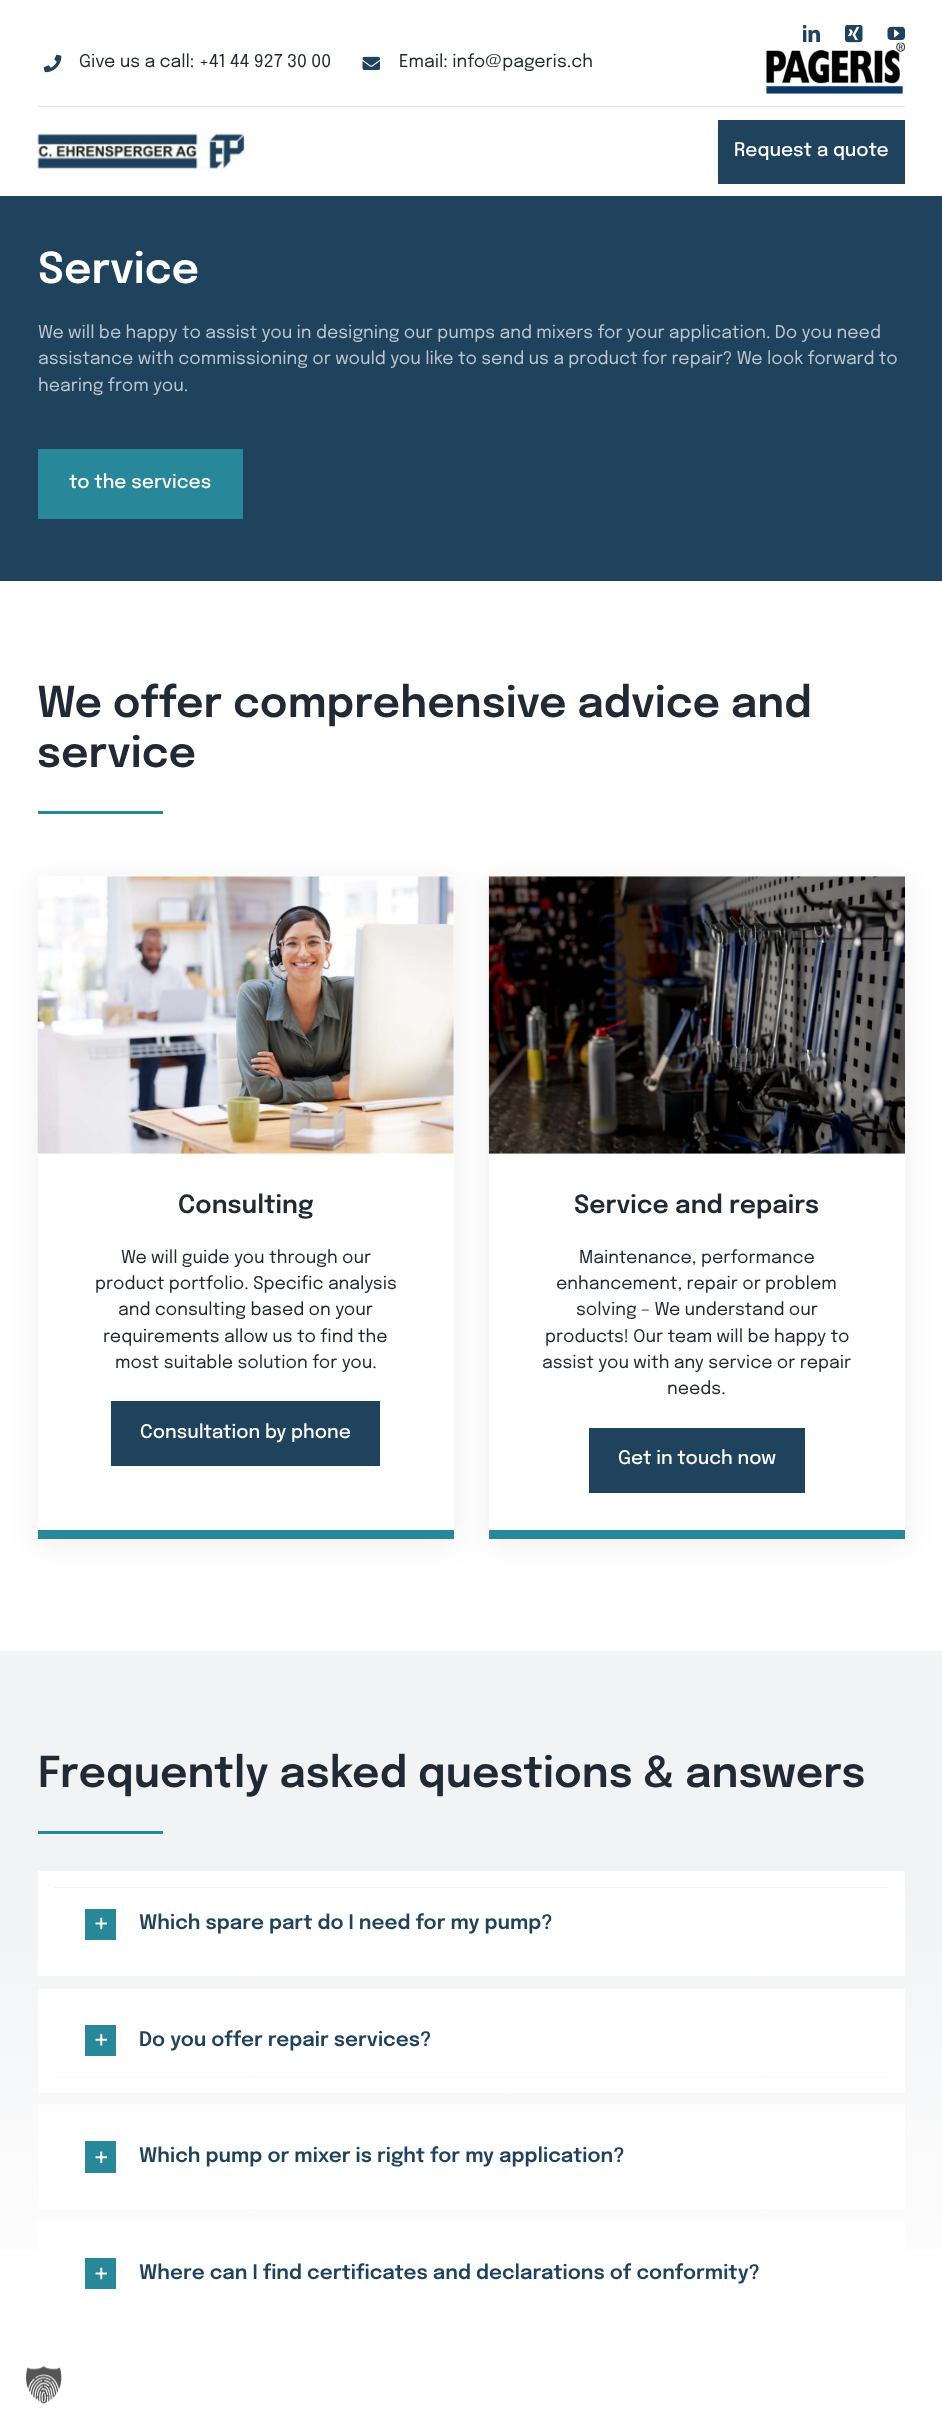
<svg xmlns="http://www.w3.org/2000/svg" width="942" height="2428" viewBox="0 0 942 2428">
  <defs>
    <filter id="blur1" x="-50%" y="-200%" width="200%" height="500%"><feGaussianBlur stdDeviation="15.5"/></filter>
    <linearGradient id="g1" gradientUnits="userSpaceOnUse" x1="471" y1="1651" x2="471" y2="2338"><stop offset="0.34" stop-color="#f2f3f5"/><stop offset="1" stop-color="#ffffff"/></linearGradient>
  </defs>
  <rect width="100%" height="100%" fill="#ffffff"/>
  <image x="43" y="54" width="19" height="19" href="img1.png"/>
  <text x="79" y="67" font-family="Epilogue" font-size="17.5" fill="#212934">Give us a call: +41 44 927 30 00</text>
  <image x="362" y="56" width="18" height="14" href="img2.png"/>
  <text x="399" y="67" font-family="Epilogue" font-size="17.5" fill="#212934">Email: info@pageris.ch</text>
  <image x="803" y="25" width="17" height="18" href="img3.png"/>
  <image x="845" y="25" width="18" height="18" href="img4.png"/>
  <image x="887" y="26" width="18" height="14" href="img5.png"/>
  <image x="766" y="42" width="139" height="52" href="img6.png"/>
  <rect x="38" y="106" width="867" height="1" fill="#e2e2e2"/>
  <image x="37" y="132" width="208" height="38" href="img7.png"/>
  <rect x="718" y="120" width="187" height="64" fill="#1f425d"/>
  <text x="734" y="156" font-family="Epilogue" font-size="18.75" font-weight="500" fill="#ffffff">Request a quote</text>
  <rect x="0" y="196" width="942" height="385" fill="#1f425d"/>
  <text x="38" y="283" font-family="Epilogue" font-size="42.5" font-weight="600" fill="#ffffff">Service</text>
  <text x="38" y="338" font-family="Epilogue" font-size="17.5" fill="#bcc6ce">We will be happy to assist you in designing our pumps and mixers for your application. Do you need</text>
  <text x="38" y="364" font-family="Epilogue" font-size="17.5" fill="#bcc6ce">assistance with commissioning or would you like to send us a product for repair? We look forward to</text>
  <text x="38" y="391" font-family="Epilogue" font-size="17.5" fill="#bcc6ce">hearing from you.</text>
  <rect x="38" y="449" width="205" height="70" fill="#29879a"/>
  <text x="69" y="488" font-family="Epilogue" font-size="18.75" font-weight="500" fill="#ffffff">to the services</text>
  <text x="37" y="717" font-family="Epilogue" font-size="42.5" font-weight="600" fill="#212934">We offer comprehensive advice and</text>
  <text x="37" y="767" font-family="Epilogue" font-size="42.5" font-weight="600" fill="#212934">service</text>
  <rect x="38" y="811" width="125" height="3" fill="#29879a"/>
  <rect x="38" y="881" width="416" height="663" fill="#000000" fill-opacity="0.07" filter="url(#blur1)"/>
  <rect x="38" y="876" width="416" height="654" fill="#ffffff"/>
  <rect x="38" y="1530" width="416" height="9" fill="#29879a"/>
  <rect x="489" y="881" width="416" height="663" fill="#000000" fill-opacity="0.07" filter="url(#blur1)"/>
  <image x="37" y="876" width="417" height="278" href="img8.png"/>
  <text x="178" y="1213" font-family="Epilogue" font-size="25" font-weight="600" fill="#212934">Consulting</text>
  <text x="121" y="1263" font-family="Epilogue" font-size="17.5" fill="#212934">We will guide you through our</text>
  <text x="95" y="1289" font-family="Epilogue" font-size="17.5" fill="#212934">product portfolio. Specific analysis</text>
  <text x="118" y="1315" font-family="Epilogue" font-size="17.5" fill="#212934">and consulting based on your</text>
  <text x="103" y="1342" font-family="Epilogue" font-size="17.5" fill="#212934">requirements allow us to find the</text>
  <text x="115" y="1368" font-family="Epilogue" font-size="17.5" fill="#212934">most suitable solution for you.</text>
  <rect x="111" y="1401" width="269" height="65" fill="#1f425d"/>
  <text x="140" y="1438" font-family="Epilogue" font-size="18.75" font-weight="500" fill="#ffffff">Consultation by phone</text>
  <rect x="489" y="876" width="416" height="654" fill="#ffffff"/>
  <rect x="489" y="1530" width="416" height="9" fill="#29879a"/>
  <image x="488" y="876" width="417" height="278" href="img9.png"/>
  <text x="574" y="1213" font-family="Epilogue" font-size="25" font-weight="600" fill="#212934">Service and repairs</text>
  <text x="579" y="1263" font-family="Epilogue" font-size="17.5" fill="#212934">Maintenance, performance</text>
  <text x="556" y="1289" font-family="Epilogue" font-size="17.5" fill="#212934">enhancement, repair or problem</text>
  <text x="576" y="1315" font-family="Epilogue" font-size="17.5" fill="#212934">solving – We understand our</text>
  <text x="545" y="1342" font-family="Epilogue" font-size="17.5" fill="#212934">products! Our team will be happy to</text>
  <text x="542" y="1368" font-family="Epilogue" font-size="17.5" fill="#212934">assist you with any service or repair</text>
  <text x="667" y="1394" font-family="Epilogue" font-size="17.5" fill="#212934">needs.</text>
  <rect x="589" y="1428" width="216" height="65" fill="#1f425d"/>
  <text x="618" y="1464" font-family="Epilogue" font-size="18.75" font-weight="500" fill="#ffffff">Get in touch now</text>
  <rect x="0" y="1651" width="942" height="600" fill="url(#g1)"/>
  <text x="38" y="1787" font-family="Epilogue" font-size="42.5" font-weight="600" fill="#212934">Frequently asked questions &amp; answers</text>
  <rect x="38" y="1831" width="125" height="3" fill="#29879a"/>
  <rect x="54" y="1888" width="835" height="72" fill="#ffffff"/>
  <rect x="46" y="1879" width="851" height="89" fill="none" stroke="#ffffff" stroke-width="16"/>
  <rect x="85" y="1909" width="31" height="31" fill="#29879a"/>
  <image x="95" y="1917" width="12" height="13" href="img10.png"/>
  <text x="139" y="1929" font-family="Epilogue" font-size="20" font-weight="600" fill="#1f425d">Which spare part do I need for my pump?</text>
  <rect x="54" y="2005" width="835" height="71" fill="#ffffff"/>
  <rect x="46" y="1997" width="851" height="88" fill="none" stroke="#ffffff" stroke-width="16"/>
  <rect x="85" y="2025" width="31" height="31" fill="#29879a"/>
  <image x="95" y="2034" width="12" height="12" href="img11.png"/>
  <text x="139" y="2046" font-family="Epilogue" font-size="20" font-weight="600" fill="#1f425d">Do you offer repair services?</text>
  <rect x="46" y="2113" width="851" height="88" fill="#ffffff" stroke="#ffffff" stroke-width="16"/>
  <rect x="85" y="2141" width="31" height="32" fill="#29879a"/>
  <image x="95" y="2151" width="12" height="12" href="img12.png"/>
  <text x="139" y="2162" font-family="Epilogue" font-size="20" font-weight="600" fill="#1f425d">Which pump or mixer is right for my application?</text>
  <rect x="54" y="2238" width="835" height="13" fill="#ffffff"/>
  <rect x="46" y="2229" width="851" height="88" fill="none" stroke="#ffffff" stroke-width="16"/>
  <rect x="85" y="2258" width="31" height="31" fill="#29879a"/>
  <image x="95" y="2267" width="12" height="13" href="img10.png"/>
  <text x="139" y="2279" font-family="Epilogue" font-size="20" font-weight="600" fill="#1f425d">Where can I find certificates and declarations of conformity?</text>
  <image x="26" y="2366" width="36" height="39" href="img13.png"/>
</svg>
